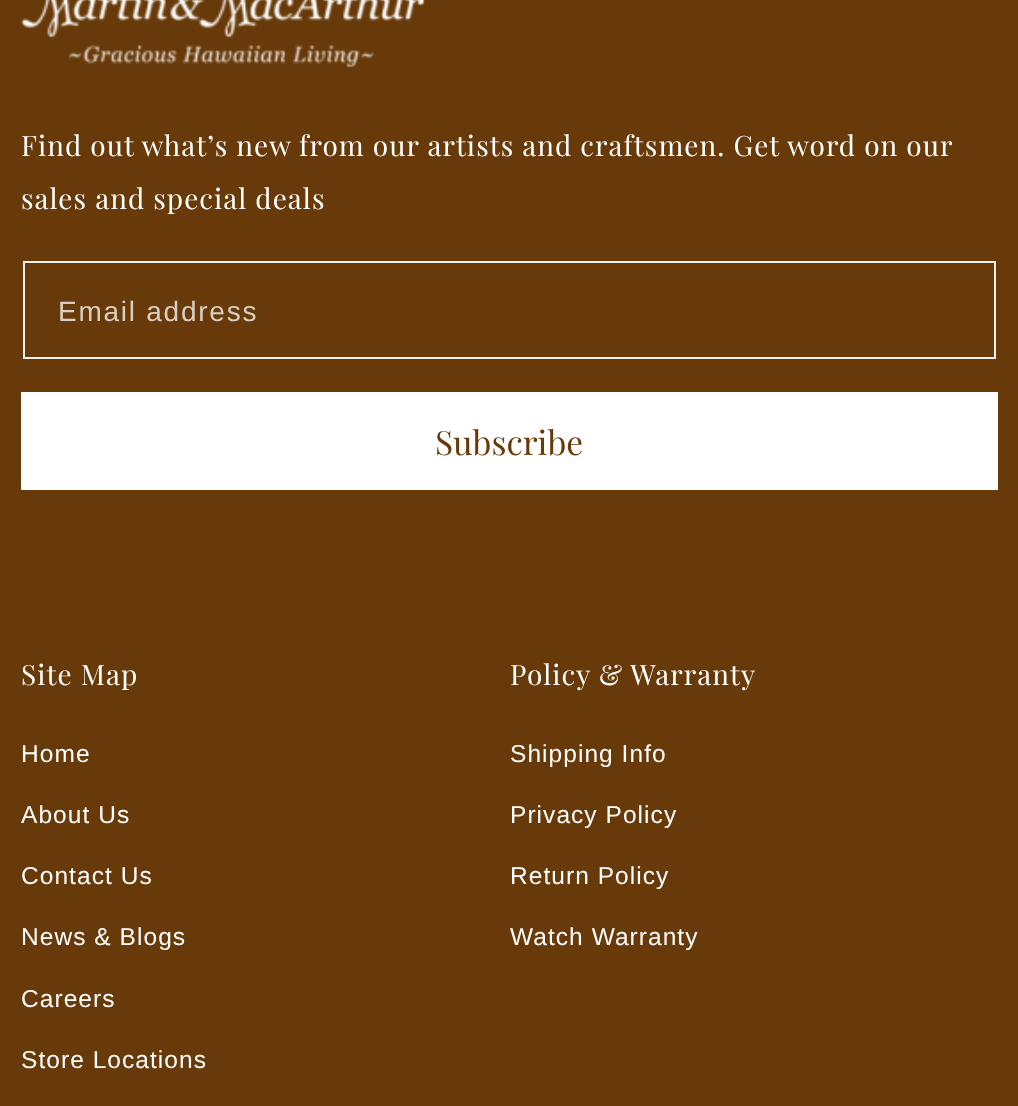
<svg xmlns="http://www.w3.org/2000/svg" width="1018" height="1106" viewBox="0 0 1018 1106">
  <rect width="100%" height="100%" fill="#683a09"/>
  <image x="21" y="0" width="405" height="67" href="img1.png"/>
  <text x="21" y="156" font-family="Playfair Display" font-size="28" letter-spacing="1.05" fill="#ffffff">Find out what’s new from our artists and craftsmen. Get word on our</text>
  <text x="21" y="209" font-family="Playfair Display" font-size="28" letter-spacing="1.05" fill="#ffffff">sales and special deals</text>
  <rect x="24" y="262" width="971" height="96" fill="none" stroke="#f0f0f0" stroke-width="2"/>
  <text x="58" y="321" font-family="Liberation Sans" font-size="28" letter-spacing="1.75" fill="#d9cec2">Email address</text>
  <rect x="21" y="392" width="977" height="98" fill="#ffffff"/>
  <text x="435" y="455" font-family="Playfair Display" font-size="33.5" fill="#683a09">Subscribe</text>
  <text x="21" y="685" font-family="Playfair Display" font-size="28" letter-spacing="1.05" fill="#ffffff">Site Map</text>
  <text x="21" y="762" font-family="Liberation Sans" font-size="24.5" letter-spacing="1.05" fill="#ffffff">Home</text>
  <text x="21" y="823" font-family="Liberation Sans" font-size="24.5" letter-spacing="1.05" fill="#ffffff">About Us</text>
  <text x="21" y="884" font-family="Liberation Sans" font-size="24.5" letter-spacing="1.05" fill="#ffffff">Contact Us</text>
  <text x="21" y="945" font-family="Liberation Sans" font-size="24.5" letter-spacing="1.05" fill="#ffffff">News &amp; Blogs</text>
  <text x="21" y="1007" font-family="Liberation Sans" font-size="24.5" letter-spacing="1.05" fill="#ffffff">Careers</text>
  <text x="21" y="1068" font-family="Liberation Sans" font-size="24.5" letter-spacing="1.05" fill="#ffffff">Store Locations</text>
  <text x="510" y="685" font-family="Playfair Display" font-size="28" letter-spacing="1.05" fill="#ffffff">Policy &amp; Warranty</text>
  <text x="510" y="762" font-family="Liberation Sans" font-size="24.5" letter-spacing="1.05" fill="#ffffff">Shipping Info</text>
  <text x="510" y="823" font-family="Liberation Sans" font-size="24.5" letter-spacing="1.05" fill="#ffffff">Privacy Policy</text>
  <text x="510" y="884" font-family="Liberation Sans" font-size="24.5" letter-spacing="1.05" fill="#ffffff">Return Policy</text>
  <text x="510" y="945" font-family="Liberation Sans" font-size="24.5" letter-spacing="1.05" fill="#ffffff">Watch Warranty</text>
</svg>
